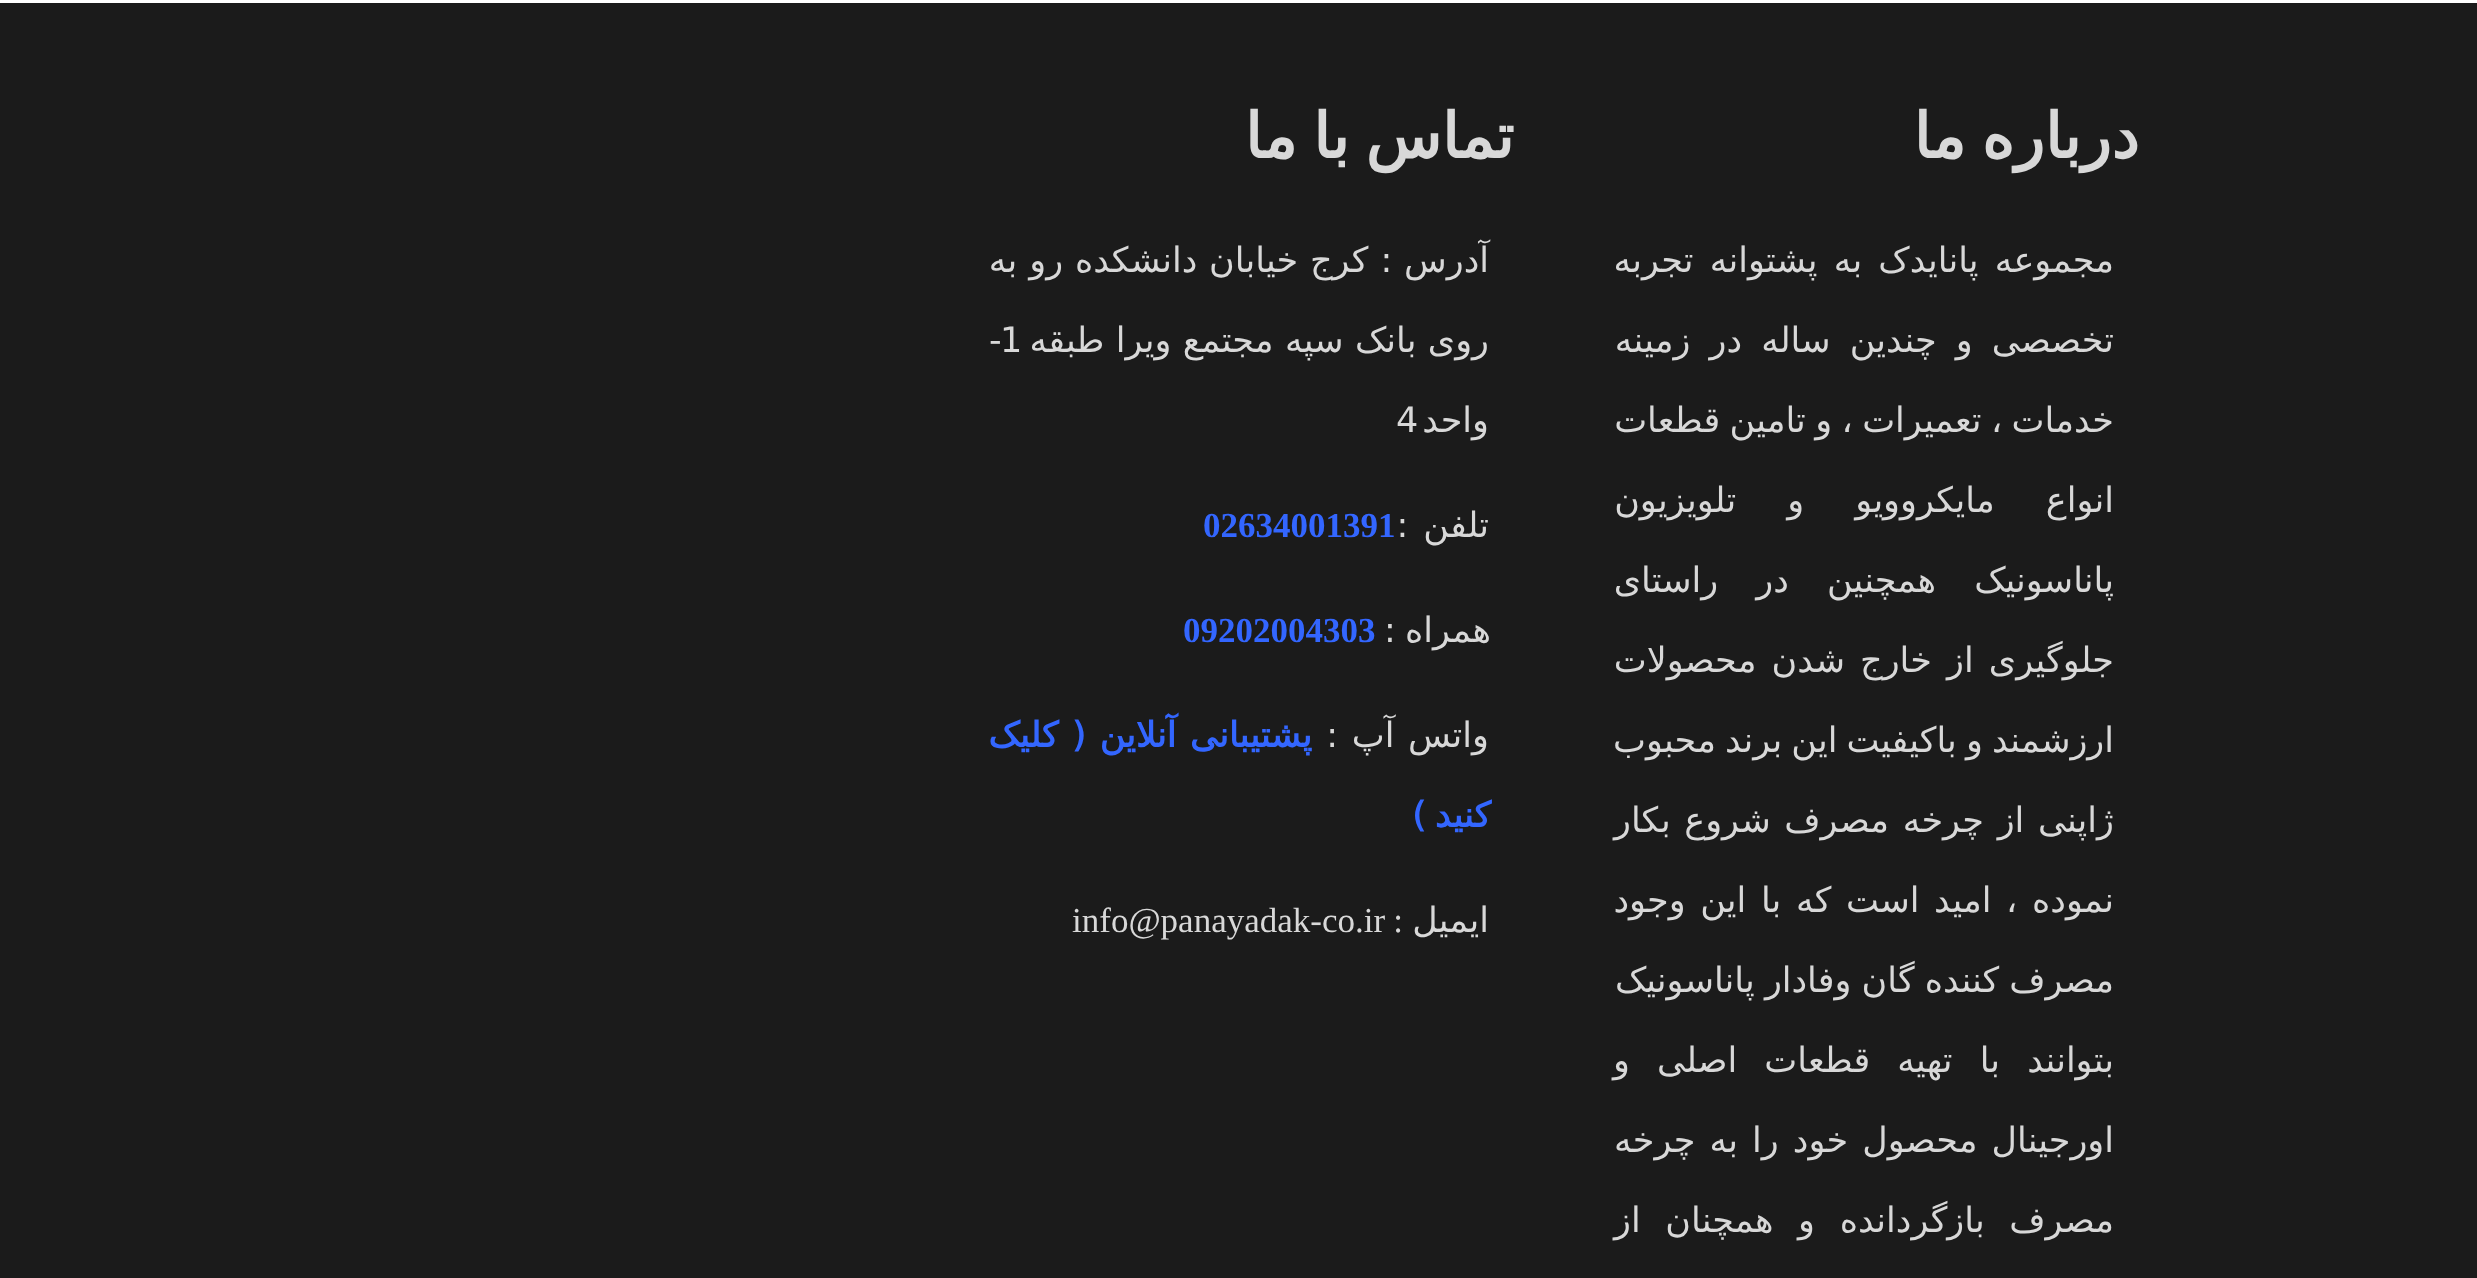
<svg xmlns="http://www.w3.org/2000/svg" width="2477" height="1278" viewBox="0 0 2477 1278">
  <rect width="100%" height="100%" fill="#ffffff"/>
  <rect x="0" y="3" width="2477" height="1275" fill="#1b1b1b"/>
  <text x="2139" y="158" word-spacing="-4" font-family="DejaVu Sans" font-size="62.5" font-weight="bold" direction="rtl" fill="#d8d8d8">درباره ما</text>
  <text x="2114" y="272" word-spacing="5" font-family="DejaVu Sans" font-size="35" direction="rtl" fill="#d8d8d8">مجموعه پانایدک به پشتوانه تجربه</text>
  <text x="2114" y="352" word-spacing="8" font-family="DejaVu Sans" font-size="35" direction="rtl" fill="#d8d8d8">تخصصی و چندین ساله در زمینه</text>
  <text x="2114" y="432" word-spacing="-1.75" font-family="DejaVu Sans" font-size="35" direction="rtl" fill="#d8d8d8">خدمات ، تعمیرات ، و تامین قطعات</text>
  <text x="2114" y="512" word-spacing="40" font-family="DejaVu Sans" font-size="35" direction="rtl" fill="#d8d8d8">انواع مایکروویو و تلویزیون</text>
  <text x="2114" y="592" word-spacing="27" font-family="DejaVu Sans" font-size="35" direction="rtl" fill="#d8d8d8">پاناسونیک همچنین در راستای</text>
  <text x="2114" y="672" word-spacing="4" font-family="DejaVu Sans" font-size="35" direction="rtl" fill="#d8d8d8">جلوگیری از خارج شدن محصولات</text>
  <text x="2114" y="752" word-spacing="-2" font-family="DejaVu Sans" font-size="35" direction="rtl" fill="#d8d8d8">ارزشمند و باکیفیت این برند محبوب</text>
  <text x="2114" y="832" word-spacing="2.5" font-family="DejaVu Sans" font-size="35" direction="rtl" fill="#d8d8d8">ژاپنی از چرخه مصرف شروع بکار</text>
  <text x="2114" y="912" word-spacing="3.5" font-family="DejaVu Sans" font-size="35" direction="rtl" fill="#d8d8d8">نموده ، امید است که با این وجود</text>
  <text x="2114" y="992" word-spacing="-1" font-family="DejaVu Sans" font-size="35" direction="rtl" fill="#d8d8d8">مصرف کننده گان وفادار پاناسونیک</text>
  <text x="2114" y="1072" word-spacing="16" font-family="DejaVu Sans" font-size="35" direction="rtl" fill="#d8d8d8">بتوانند با تهیه قطعات اصلی و</text>
  <text x="2114" y="1152" word-spacing="3" font-family="DejaVu Sans" font-size="35" direction="rtl" fill="#d8d8d8">اورجینال محصول خود را به چرخه</text>
  <text x="2114" y="1232" word-spacing="13.5" font-family="DejaVu Sans" font-size="35" direction="rtl" fill="#d8d8d8">مصرف بازگردانده و همچنان از</text>
  <text x="1514" y="158" word-spacing="-4" font-family="DejaVu Sans" font-size="62.5" font-weight="bold" direction="rtl" fill="#d8d8d8">تماس با ما</text>
  <text x="1489" y="272" word-spacing="0.75" font-family="DejaVu Sans" font-size="35" direction="rtl" fill="#d8d8d8">آدرس : کرج خیابان دانشکده رو به</text>
  <text x="1489" y="352" word-spacing="0.25" font-family="DejaVu Sans" font-size="35" direction="rtl" fill="#d8d8d8">روی بانک سپه مجتمع ویرا طبقه</text>
  <text x="1000" y="352" font-family="DejaVu Sans" font-size="35" fill="#d8d8d8">1</text>
  <text x="989" y="352" font-family="DejaVu Sans" font-size="35" fill="#d8d8d8">-</text>
  <text x="1489" y="432" font-family="DejaVu Sans" font-size="35" direction="rtl" fill="#d8d8d8">واحد</text>
  <text x="1396" y="432" font-family="DejaVu Sans" font-size="35" fill="#d8d8d8">4</text>
  <text x="1489" y="537" word-spacing="4" font-family="DejaVu Sans" font-size="35" direction="rtl" fill="#d8d8d8">تلفن :</text>
  <text x="1203" y="537" font-family="Liberation Serif" font-size="35" font-weight="bold" fill="#3366ff">02634001391</text>
  <text x="1491" y="642" word-spacing="-2" font-family="DejaVu Sans" font-size="35" direction="rtl" fill="#d8d8d8">همراه :</text>
  <text x="1183" y="642" font-family="Liberation Serif" font-size="35" font-weight="bold" fill="#3366ff">09202004303</text>
  <text x="1489" y="747" word-spacing="2.5" font-family="DejaVu Sans" font-size="35" direction="rtl" fill="#d8d8d8">واتس آپ :</text>
  <text x="1312" y="747" word-spacing="2.5" font-family="DejaVu Sans" font-size="35" font-weight="bold" direction="rtl" fill="#3366ff">پشتیبانی آنلاین ( کلیک</text>
  <text x="1491" y="827" word-spacing="-2" font-family="DejaVu Sans" font-size="35" font-weight="bold" direction="rtl" fill="#3366ff">کنید )</text>
  <text x="1489" y="932" font-family="DejaVu Sans" font-size="35" direction="rtl" fill="#d8d8d8">ایمیل</text>
  <text x="1403" y="932" font-family="Liberation Serif" font-size="35" direction="rtl" fill="#d8d8d8">:</text>
  <text x="1072" y="932" font-family="Liberation Serif" font-size="35" fill="#d8d8d8">info@panayadak-co.ir</text>
</svg>
